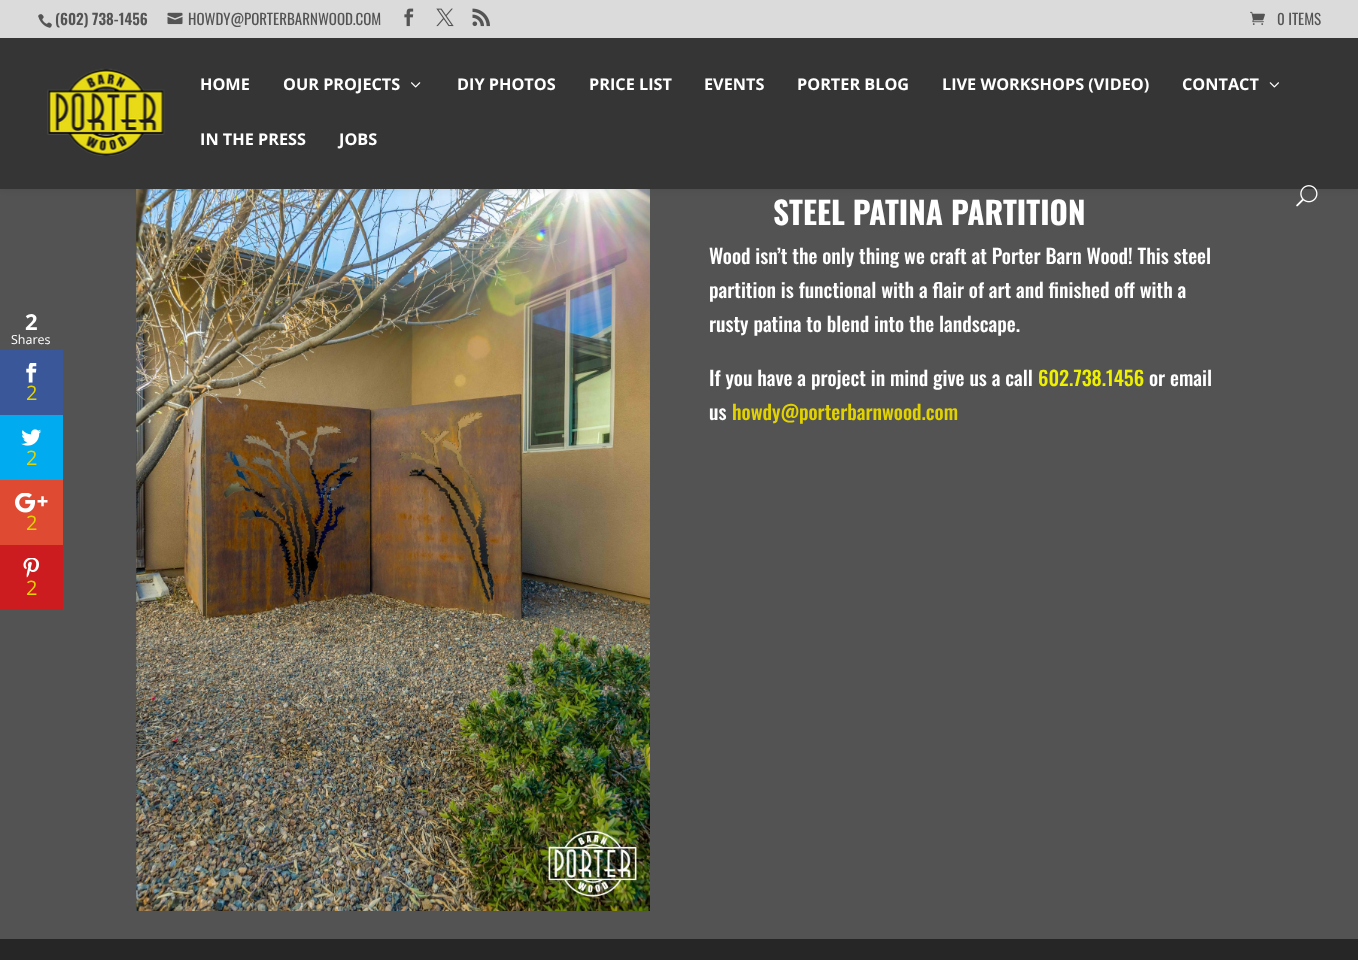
<svg xmlns="http://www.w3.org/2000/svg" width="1358" height="960" viewBox="0 0 1358 960">
  <defs>
    <filter id="blur1" x="-50%" y="-200%" width="200%" height="500%"><feGaussianBlur stdDeviation="4.5"/></filter>
  </defs>
  <rect width="100%" height="100%" fill="#535353"/>
  <image x="136" y="189" width="514" height="722" href="img11.png"/>
  <rect x="0" y="38" width="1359" height="151" fill="#000000" fill-opacity="0.1" filter="url(#blur1)"/>
  <rect x="0" y="0" width="1358" height="38" fill="#dbdbdb"/>
  <image x="38" y="14" width="14" height="14" href="img1.png"/>
  <text x="55" y="25" font-family="Oswald" font-size="15" font-weight="600" fill="#545454">(602) 738-1456</text>
  <image x="167" y="12" width="16" height="13" href="img2.png"/>
  <text x="188" y="25" font-family="Oswald" font-size="15" fill="#545454">HOWDY@PORTERBARNWOOD.COM</text>
  <image x="404" y="8" width="10" height="19" href="img3.png"/>
  <image x="436" y="8" width="18" height="19" href="img4.png"/>
  <image x="472" y="8" width="18" height="19" href="img5.png"/>
  <image x="1250" y="11" width="15" height="14" href="img6.png"/>
  <text x="1277" y="25" font-family="Oswald" font-size="15" fill="#545454">0 ITEMS</text>
  <rect x="0" y="38" width="1358" height="151" fill="#353535"/>
  <image x="47" y="68" width="118" height="88" href="img7.png"/>
  <text x="200" y="90" font-family="Open Sans" font-size="16.25" font-weight="bold" fill="#ffffff">HOME</text>
  <text x="283" y="90" font-family="Open Sans" font-size="16.25" font-weight="bold" fill="#ffffff">OUR PROJECTS</text>
  <image x="411" y="82" width="10" height="6" href="img8.png"/>
  <text x="457" y="90" font-family="Open Sans" font-size="16.25" font-weight="bold" fill="#ffffff">DIY PHOTOS</text>
  <text x="589" y="90" font-family="Open Sans" font-size="16.25" font-weight="bold" fill="#ffffff">PRICE LIST</text>
  <text x="704" y="90" font-family="Open Sans" font-size="16.25" font-weight="bold" fill="#ffffff">EVENTS</text>
  <text x="797" y="90" font-family="Open Sans" font-size="16.25" font-weight="bold" fill="#ffffff">PORTER BLOG</text>
  <text x="942" y="90" font-family="Open Sans" font-size="16.25" font-weight="bold" fill="#ffffff">LIVE WORKSHOPS (VIDEO)</text>
  <text x="1182" y="90" font-family="Open Sans" font-size="16.25" font-weight="bold" fill="#ffffff">CONTACT</text>
  <image x="1269" y="82" width="10" height="6" href="img9.png"/>
  <text x="200" y="145" font-family="Open Sans" font-size="16.25" font-weight="bold" fill="#ffffff">IN THE PRESS</text>
  <text x="339" y="145" font-family="Open Sans" font-size="16.25" font-weight="bold" fill="#ffffff">JOBS</text>
  <image x="1296" y="185" width="22" height="22" href="img10.png"/>
  <text x="773" y="225" font-family="Oswald" font-size="31.25" font-weight="bold" fill="#ffffff">STEEL PATINA PARTITION</text>
  <text x="709" y="264" font-family="Oswald" font-size="20" font-weight="500" fill="#ffffff">Wood isn’t the only thing we craft at Porter Barn Wood! This steel</text>
  <text x="709" y="298" font-family="Oswald" font-size="20" font-weight="500" fill="#ffffff">partition is functional with a flair of art and finished off with a</text>
  <text x="709" y="332" font-family="Oswald" font-size="20" font-weight="500" fill="#ffffff">rusty patina to blend into the landscape.</text>
  <text x="709" y="386" font-family="Oswald" font-size="20" font-weight="500" fill="#ffffff">If you have a project in mind give us a call</text>
  <text x="1038" y="386" font-family="Oswald" font-size="20" font-weight="500" fill="#edf000">602.738.1456</text>
  <text x="1149" y="386" font-family="Oswald" font-size="20" font-weight="500" fill="#ffffff">or email</text>
  <text x="709" y="420" font-family="Oswald" font-size="20" font-weight="500" fill="#ffffff">us</text>
  <text x="732" y="420" font-family="Oswald" font-size="20" font-weight="500" fill="#e2d300">howdy@porterbarnwood.com</text>
  <rect x="0" y="939" width="1358" height="21" fill="#262626"/>
  <text x="25" y="330" font-family="Open Sans" font-size="22" font-weight="bold" fill="#ffffff">2</text>
  <text x="11" y="344" font-family="Open Sans" font-size="12.5" fill="#ffffff">Shares</text>
  <rect x="0" y="350" width="63" height="65" fill="#3a579a"/>
  <image x="26" y="363" width="11" height="20" href="img12.png"/>
  <text x="26" y="400" font-family="Open Sans" font-size="20" fill="#e2d300">2</text>
  <rect x="0" y="415" width="63" height="65" fill="#00abf0"/>
  <image x="21" y="429" width="21" height="17" href="img13.png"/>
  <text x="26" y="465" font-family="Open Sans" font-size="20" fill="#e2d300">2</text>
  <rect x="0" y="480" width="63" height="65" fill="#df4a32"/>
  <image x="15" y="493" width="33" height="20" href="img14.png"/>
  <text x="26" y="530" font-family="Open Sans" font-size="20" fill="#e2d300">2</text>
  <rect x="0" y="545" width="63" height="65" fill="#cd1c1f"/>
  <image x="23" y="558" width="16" height="20" href="img15.png"/>
  <text x="26" y="595" font-family="Open Sans" font-size="20" fill="#e2d300">2</text>
</svg>
